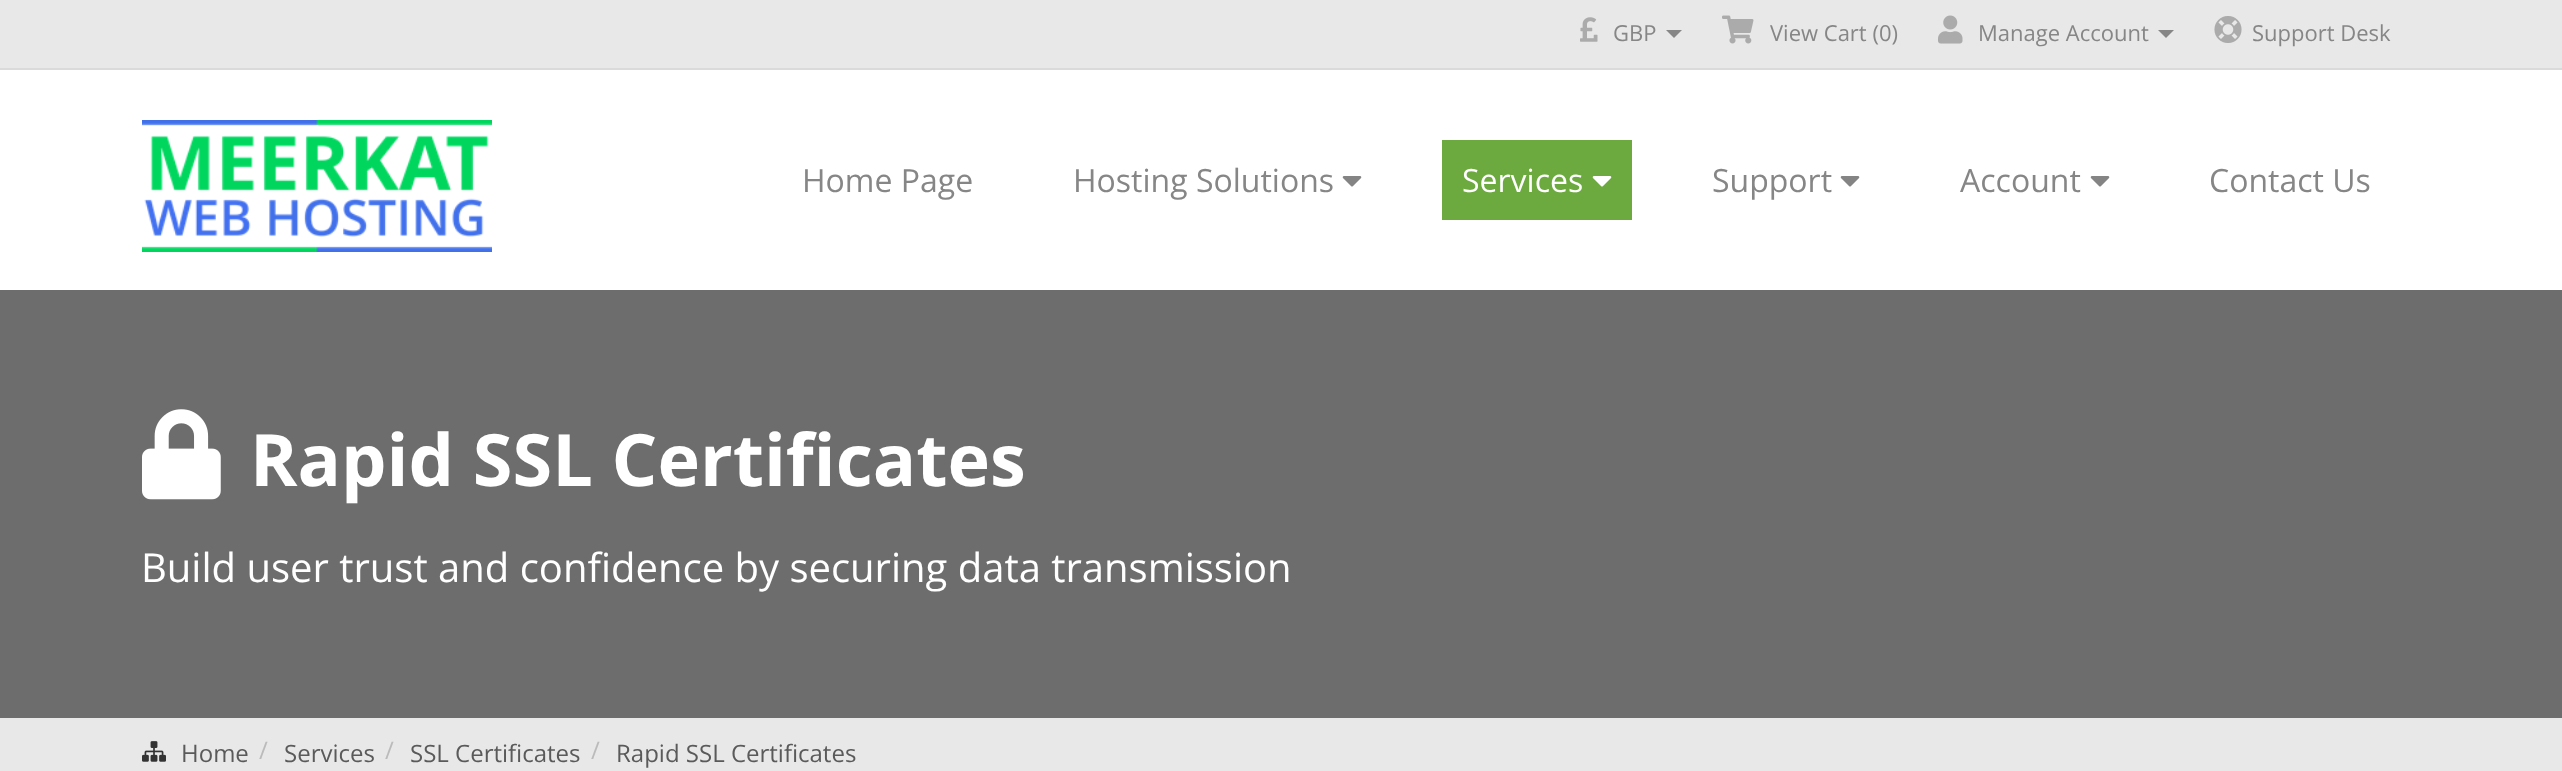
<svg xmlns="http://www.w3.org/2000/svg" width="2562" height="771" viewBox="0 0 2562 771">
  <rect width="100%" height="100%" fill="#ffffff"/>
  <rect x="0" y="0" width="2562" height="68" fill="#e8e8e8"/>
  <rect x="0" y="68" width="2562" height="2" fill="#dadada"/>
  <image x="1580" y="17" width="18" height="25" href="img1.png"/>
  <text x="1613" y="41" font-family="Open Sans" font-size="22" fill="#868686">GBP</text>
  <path d="M1666 30H1682L1674 38Z" fill="#868686"/>
  <image x="1722" y="15" width="32" height="29" href="img2.png"/>
  <text x="1770" y="41" font-family="Open Sans" font-size="22" fill="#868686">View Cart (0)</text>
  <image x="1938" y="15" width="25" height="29" href="img3.png"/>
  <text x="1978" y="41" font-family="Open Sans" font-size="22" fill="#868686">Manage Account</text>
  <path d="M2158 30H2174L2166 38Z" fill="#868686"/>
  <image x="2214" y="16" width="28" height="27" href="img4.png"/>
  <text x="2252" y="41" font-family="Open Sans" font-size="22" fill="#868686">Support Desk</text>
  <image x="142" y="120" width="350" height="132" href="img5.png"/>
  <text x="802" y="192" font-family="Open Sans" font-size="32" fill="#868686">Home Page</text>
  <text x="1073" y="192" font-family="Open Sans" font-size="32" fill="#868686">Hosting Solutions</text>
  <image x="1342" y="176" width="20" height="11" href="img6.png"/>
  <rect x="1442" y="140" width="190" height="80" fill="#6ca93e"/>
  <text x="1462" y="192" font-family="Open Sans" font-size="32" fill="#ffffff">Services</text>
  <image x="1592" y="176" width="20" height="11" href="img7.png"/>
  <text x="1712" y="192" font-family="Open Sans" font-size="32" fill="#868686">Support</text>
  <image x="1840" y="176" width="20" height="11" href="img6.png"/>
  <text x="1960" y="192" font-family="Open Sans" font-size="32" fill="#868686">Account</text>
  <image x="2090" y="176" width="20" height="11" href="img6.png"/>
  <text x="2209" y="192" font-family="Open Sans" font-size="32" fill="#868686">Contact Us</text>
  <rect x="0" y="290" width="2562" height="428" fill="#6d6d6d"/>
  <image x="142" y="409" width="79" height="91" href="img8.png"/>
  <text x="250" y="486" font-family="Open Sans" font-size="72" font-weight="bold" fill="#ffffff">Rapid SSL Certificates</text>
  <text x="141" y="582" font-family="Open Sans" font-size="40" fill="#ffffff">Build user trust and confidence by securing data transmission</text>
  <rect x="0" y="718" width="2562" height="53" fill="#e8e8e8"/>
  <image x="142" y="741" width="24" height="21" href="img9.png"/>
  <text x="181" y="762" font-family="Open Sans" font-size="24" fill="#5a5a5a">Home</text>
  <text x="259" y="759" font-family="Open Sans" font-size="24" fill="#bbbbbb">/</text>
  <text x="284" y="762" font-family="Open Sans" font-size="24" fill="#5a5a5a">Services</text>
  <text x="385" y="759" font-family="Open Sans" font-size="24" fill="#bbbbbb">/</text>
  <text x="410" y="762" font-family="Open Sans" font-size="24" fill="#5a5a5a">SSL Certificates</text>
  <text x="591" y="759" font-family="Open Sans" font-size="24" fill="#bbbbbb">/</text>
  <text x="616" y="762" font-family="Open Sans" font-size="24" fill="#5a5a5a">Rapid SSL Certificates</text>
</svg>
